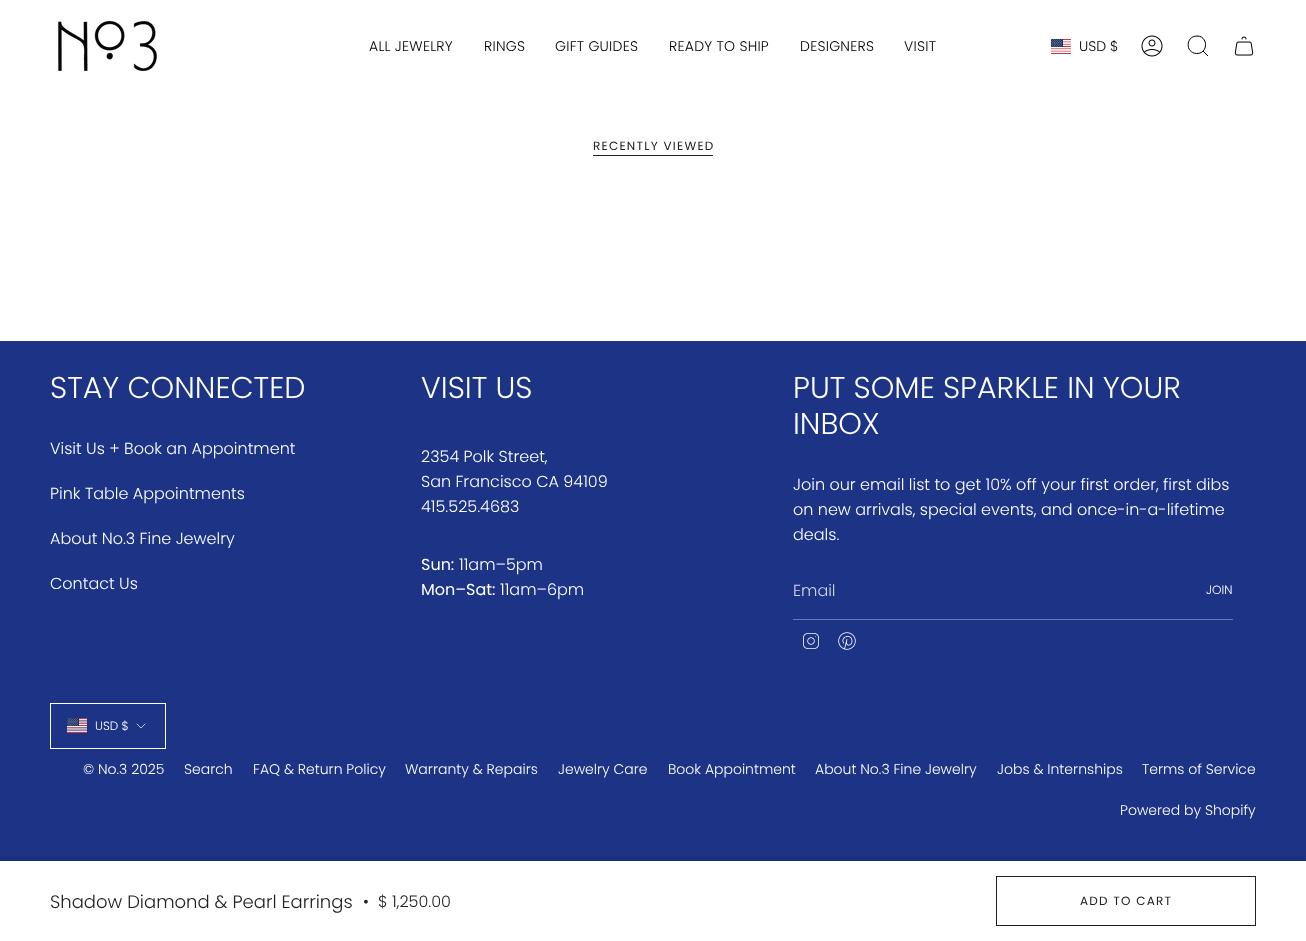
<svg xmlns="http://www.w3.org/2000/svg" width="1306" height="941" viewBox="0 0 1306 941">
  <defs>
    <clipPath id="clip1"><rect x="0" y="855" width="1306" height="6"/></clipPath>
    <filter id="blur1" x="-50%" y="-200%" width="200%" height="500%"><feGaussianBlur stdDeviation="5"/></filter>
  </defs>
  <rect width="100%" height="100%" fill="#ffffff"/>
  <image x="58" y="20" width="99" height="52" href="img1.png"/>
  <text x="369" y="51" font-family="Poppins" font-size="14" font-weight="300" letter-spacing="0.25" fill="#000000">ALL JEWELRY</text>
  <text x="484" y="51" font-family="Poppins" font-size="14" font-weight="300" letter-spacing="0.25" fill="#000000">RINGS</text>
  <text x="555" y="51" font-family="Poppins" font-size="14" font-weight="300" letter-spacing="0.25" fill="#000000">GIFT GUIDES</text>
  <text x="669" y="51" font-family="Poppins" font-size="14" font-weight="300" letter-spacing="0.25" fill="#000000">READY TO SHIP</text>
  <text x="800" y="51" font-family="Poppins" font-size="14" font-weight="300" letter-spacing="0.25" fill="#000000">DESIGNERS</text>
  <text x="904" y="51" font-family="Poppins" font-size="14" font-weight="300" letter-spacing="0.25" fill="#000000">VISIT</text>
  <image x="1051" y="39" width="20" height="15" href="img2.png"/>
  <text x="1079" y="51" font-family="Poppins" font-size="14" font-weight="300" fill="#000000">USD $</text>
  <image x="1141" y="35" width="22" height="22" href="img3.png"/>
  <path d="M1197 36C1208.5 36 1208.5 54 1196.5 53.5C1185 53 1185.5 36 1197 36ZM1203 51L1208 56" fill="none" stroke="#000000"/>
  <image x="1234" y="36" width="20" height="20" href="img4.png"/>
  <text x="593" y="150" font-family="Poppins" font-size="12" letter-spacing="1.25" fill="#212121">RECENTLY VIEWED</text>
  <rect x="593" y="155" width="120" height="1" fill="#212121"/>
  <rect x="0" y="341" width="1306" height="520" fill="#1c3386"/>
  <g clip-path="url(#clip1)">
    <rect x="0" y="861" width="1306" height="80" fill="#000000" fill-opacity="0.2" filter="url(#blur1)"/>
  </g>
  <text x="50" y="908" font-family="Poppins" font-size="18" font-weight="300" fill="#212121">Shadow Diamond &amp; Pearl Earrings</text>
  <text x="363" y="907" font-family="Poppins" font-size="16" font-weight="300" fill="#212121">•</text>
  <text x="378" y="907" font-family="Poppins" font-size="16" font-weight="300" fill="#212121">$ 1,250.00</text>
  <rect x="996.5" y="876.5" width="259" height="49" fill="none" stroke="#212121"/>
  <text x="1080" y="905" font-family="Poppins" font-size="12" letter-spacing="1.25" fill="#212121">ADD TO CART</text>
  <text x="50" y="398" font-family="Poppins" font-size="30" font-weight="300" fill="#ffffff">STAY CONNECTED</text>
  <text x="50" y="454" font-family="Poppins" font-size="16" font-weight="300" fill="#ffffff">Visit Us + Book an Appointment</text>
  <text x="50" y="499" font-family="Poppins" font-size="16" font-weight="300" fill="#ffffff">Pink Table Appointments</text>
  <text x="50" y="544" font-family="Poppins" font-size="16" font-weight="300" fill="#ffffff">About No.3 Fine Jewelry</text>
  <text x="50" y="589" font-family="Poppins" font-size="16" font-weight="300" fill="#ffffff">Contact Us</text>
  <text x="421" y="398" font-family="Poppins" font-size="30" font-weight="300" fill="#ffffff">VISIT US</text>
  <text x="421" y="462" font-family="Poppins" font-size="16" font-weight="300" fill="#ffffff">2354 Polk Street,</text>
  <text x="421" y="487" font-family="Poppins" font-size="16" font-weight="300" fill="#ffffff">San Francisco CA 94109</text>
  <text x="421" y="512" font-family="Poppins" font-size="16" font-weight="300" fill="#ffffff">415.525.4683</text>
  <text x="421" y="570" font-family="Poppins" font-size="16" fill="#ffffff">Sun:</text>
  <text x="459" y="570" font-family="Poppins" font-size="16" font-weight="300" fill="#ffffff">11am–5pm</text>
  <text x="421" y="595" font-family="Poppins" font-size="16" fill="#ffffff">Mon–Sat:</text>
  <text x="500" y="595" font-family="Poppins" font-size="16" font-weight="300" fill="#ffffff">11am–6pm</text>
  <text x="793" y="398" font-family="Poppins" font-size="30" font-weight="300" fill="#ffffff">PUT SOME SPARKLE IN YOUR</text>
  <text x="793" y="434" font-family="Poppins" font-size="30" font-weight="300" fill="#ffffff">INBOX</text>
  <text x="793" y="490" font-family="Poppins" font-size="16" font-weight="300" fill="#ffffff">Join our email list to get 10% off your first order, first dibs</text>
  <text x="793" y="515" font-family="Poppins" font-size="16" font-weight="300" fill="#ffffff">on new arrivals, special events, and once-in-a-lifetime</text>
  <text x="793" y="540" font-family="Poppins" font-size="16" font-weight="300" fill="#ffffff">deals.</text>
  <rect x="793" y="619" width="440" height="1" fill="#6b7ab0"/>
  <text x="793" y="596" font-family="Poppins" font-size="16" font-weight="300" fill="#d2d6e7">Email</text>
  <text x="1206" y="594" font-family="Poppins" font-size="12" font-weight="300" fill="#ffffff">JOIN</text>
  <image x="803" y="633" width="16" height="16" href="img5.png"/>
  <image x="838" y="632" width="18" height="18" href="img6.png"/>
  <rect x="50.5" y="703.5" width="115" height="45" fill="none" stroke="#ffffff"/>
  <image x="67" y="718" width="20" height="15" href="img7.png"/>
  <text x="95" y="730" font-family="Poppins" font-size="12" font-weight="300" fill="#ffffff">USD $</text>
  <path d="M137 724L141 728L145 724" fill="none" stroke="#ffffff" stroke-width="0.7" stroke-linecap="round" stroke-linejoin="round"/>
  <text x="83" y="774" font-family="Poppins" font-size="14" font-weight="300" fill="#ffffff">© No.3 2025</text>
  <text x="184" y="774" font-family="Poppins" font-size="14" font-weight="300" fill="#ffffff">Search</text>
  <text x="253" y="774" font-family="Poppins" font-size="14" font-weight="300" fill="#ffffff">FAQ &amp; Return Policy</text>
  <text x="405" y="774" font-family="Poppins" font-size="14" font-weight="300" fill="#ffffff">Warranty &amp; Repairs</text>
  <text x="558" y="774" font-family="Poppins" font-size="14" font-weight="300" fill="#ffffff">Jewelry Care</text>
  <text x="668" y="774" font-family="Poppins" font-size="14" font-weight="300" fill="#ffffff">Book Appointment</text>
  <text x="815" y="774" font-family="Poppins" font-size="14" font-weight="300" fill="#ffffff">About No.3 Fine Jewelry</text>
  <text x="997" y="774" font-family="Poppins" font-size="14" font-weight="300" fill="#ffffff">Jobs &amp; Internships</text>
  <text x="1142" y="774" font-family="Poppins" font-size="14" font-weight="300" fill="#ffffff">Terms of Service</text>
  <text x="1120" y="815" font-family="Poppins" font-size="14" font-weight="300" fill="#ffffff">Powered by Shopify</text>
</svg>
